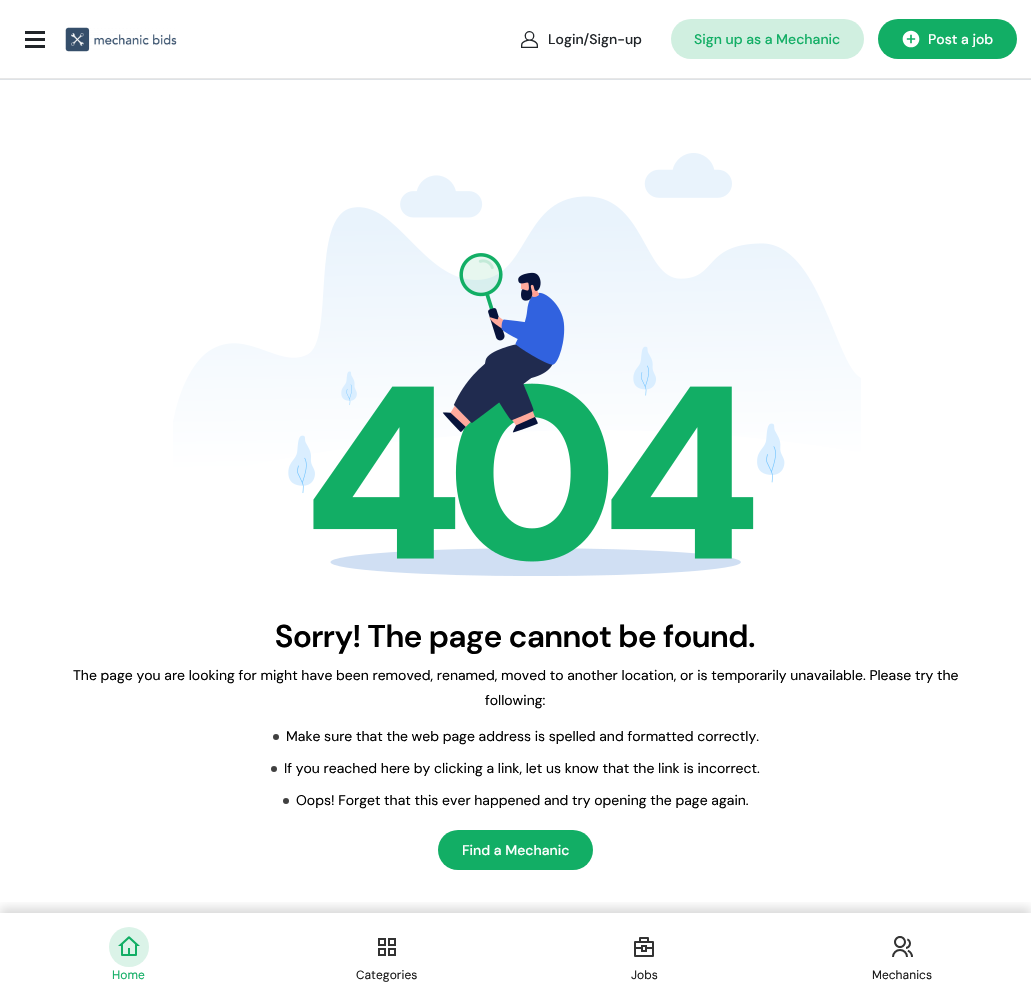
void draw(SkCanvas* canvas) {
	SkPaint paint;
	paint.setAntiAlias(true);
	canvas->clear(0xffffffff);
	paint.setColor(0xffe7e7e7);
	canvas->drawRect(SkRect::MakeXYWH(0, 78, 1031, 1), paint);
	paint.setColor(0xff212529);
	canvas->drawRect(SkRect::MakeXYWH(25, 38, 20, 3), paint);
	canvas->drawRect(SkRect::MakeXYWH(25, 31, 20, 3), paint);
	canvas->drawRect(SkRect::MakeXYWH(25, 45, 20, 3), paint);
	canvas->drawImageRect(SkImages::DeferredFromEncodedData(SkData::MakeFromFileName("img1.png")), SkRect::MakeXYWH(65, 27, 112, 25), SkSamplingOptions());
	canvas->drawImageRect(SkImages::DeferredFromEncodedData(SkData::MakeFromFileName("img2.png")), SkRect::MakeXYWH(521, 31, 17, 17), SkSamplingOptions());
	SkFont f1(fontMgr->matchFamilyStyle("DM Sans", SkFontStyle(500, SkFontStyle::kNormal_Width, SkFontStyle::kUpright_Slant)), 14);
	f1.setSubpixel(true);
	canvas->drawString("Login/Sign-up", 548, 44, f1, paint);
	paint.setColor(0xffd0efe0);
	canvas->drawRoundRect(SkRect::MakeXYWH(671, 19, 193, 40), 20, 20, paint);
	paint.setColor(0xff12ae65);
	canvas->drawString("Sign up as a Mechanic", 694, 44, f1, paint);
	canvas->drawRoundRect(SkRect::MakeXYWH(878, 19, 139, 40), 20, 20, paint);
	canvas->drawImageRect(SkImages::DeferredFromEncodedData(SkData::MakeFromFileName("img3.png")), SkRect::MakeXYWH(902, 30, 18, 18), SkSamplingOptions());
	paint.setColor(0xffffffff);
	canvas->drawString("Post a job", 928, 44, f1, paint);
	canvas->save();
	canvas->clipRect(SkRect::MakeXYWH(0, 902, 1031, 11));
	paint.setColor(0x26000000);
	paint.setMaskFilter(SkMaskFilter::MakeBlur(kNormal_SkBlurStyle, 5));
	canvas->drawRect(SkRect::MakeXYWH(0, 908, 1031, 87), paint);
	paint.setMaskFilter(nullptr);
	canvas->restore();
	paint.setColor(0xffdbf3e8);
	canvas->drawCircle(129, 947, 20, paint);
	canvas->drawImageRect(SkImages::DeferredFromEncodedData(SkData::MakeFromFileName("img4.png")), SkRect::MakeXYWH(118, 936, 22, 20), SkSamplingOptions());
	SkFont f2(fontMgr->matchFamilyStyle("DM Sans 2", SkFontStyle::Normal()), 12);
	f2.setSubpixel(true);
	paint.setColor(0xff12ae65);
	canvas->drawString("Home", 112, 979, f2, paint);
	canvas->drawImageRect(SkImages::DeferredFromEncodedData(SkData::MakeFromFileName("img5.png")), SkRect::MakeXYWH(378, 938, 18, 18), SkSamplingOptions());
	paint.setColor(0xff1a1a1a);
	canvas->drawString("Categories", 356, 979, f2, paint);
	canvas->drawImageRect(SkImages::DeferredFromEncodedData(SkData::MakeFromFileName("img6.png")), SkRect::MakeXYWH(634, 937, 20, 20), SkSamplingOptions());
	canvas->drawString("Jobs", 631, 979, f2, paint);
	canvas->drawImageRect(SkImages::DeferredFromEncodedData(SkData::MakeFromFileName("img7.png")), SkRect::MakeXYWH(892, 936, 21, 21), SkSamplingOptions());
	canvas->drawString("Mechanics", 872, 979, f2, paint);
	paint.setColor(0xffdee2e6);
	canvas->drawRect(SkRect::MakeXYWH(0, 79, 1031, 1), paint);
	canvas->drawImageRect(SkImages::DeferredFromEncodedData(SkData::MakeFromFileName("img8.png")), SkRect::MakeXYWH(173, 153, 688, 423), SkSamplingOptions());
	SkFont f3(fontMgr->matchFamilyStyle("DM Sans", SkFontStyle(600, SkFontStyle::kNormal_Width, SkFontStyle::kUpright_Slant)), 31.5);
	f3.setSubpixel(true);
	paint.setColor(0xff000000);
	canvas->drawString("Sorry! The page cannot be found.", 275, 647, f3, paint);
	SkFont f4(fontMgr->matchFamilyStyle("DM Sans", SkFontStyle::Normal()), 14);
	f4.setSubpixel(true);
	canvas->drawString("The page you are looking for might have been removed, renamed, moved to another location, or is temporarily unavailable. Please try the", 73, 680, f4, paint);
	canvas->drawString("following:", 485, 705, f4, paint);
	paint.setColor(0xff404040);
	canvas->drawCircle(276, 737, 3, paint);
	paint.setColor(0xff000000);
	canvas->drawString("Make sure that the web page address is spelled and formatted correctly.", 286, 741, f4, paint);
	paint.setColor(0xff404040);
	canvas->drawCircle(274, 769, 3, paint);
	paint.setColor(0xff000000);
	canvas->drawString("If you reached here by clicking a link, let us know that the link is incorrect.", 284, 773, f4, paint);
	paint.setColor(0xff404040);
	canvas->drawCircle(286, 801, 3, paint);
	paint.setColor(0xff000000);
	canvas->drawString("Oops! Forget that this ever happened and try opening the page again.", 296, 805, f4, paint);
	paint.setColor(0xff12ae65);
	canvas->drawRoundRect(SkRect::MakeXYWH(438, 830, 155, 40), 20, 20, paint);
	paint.setColor(0xffffffff);
	canvas->drawString("Find a Mechanic", 462, 855, f1, paint);
}
